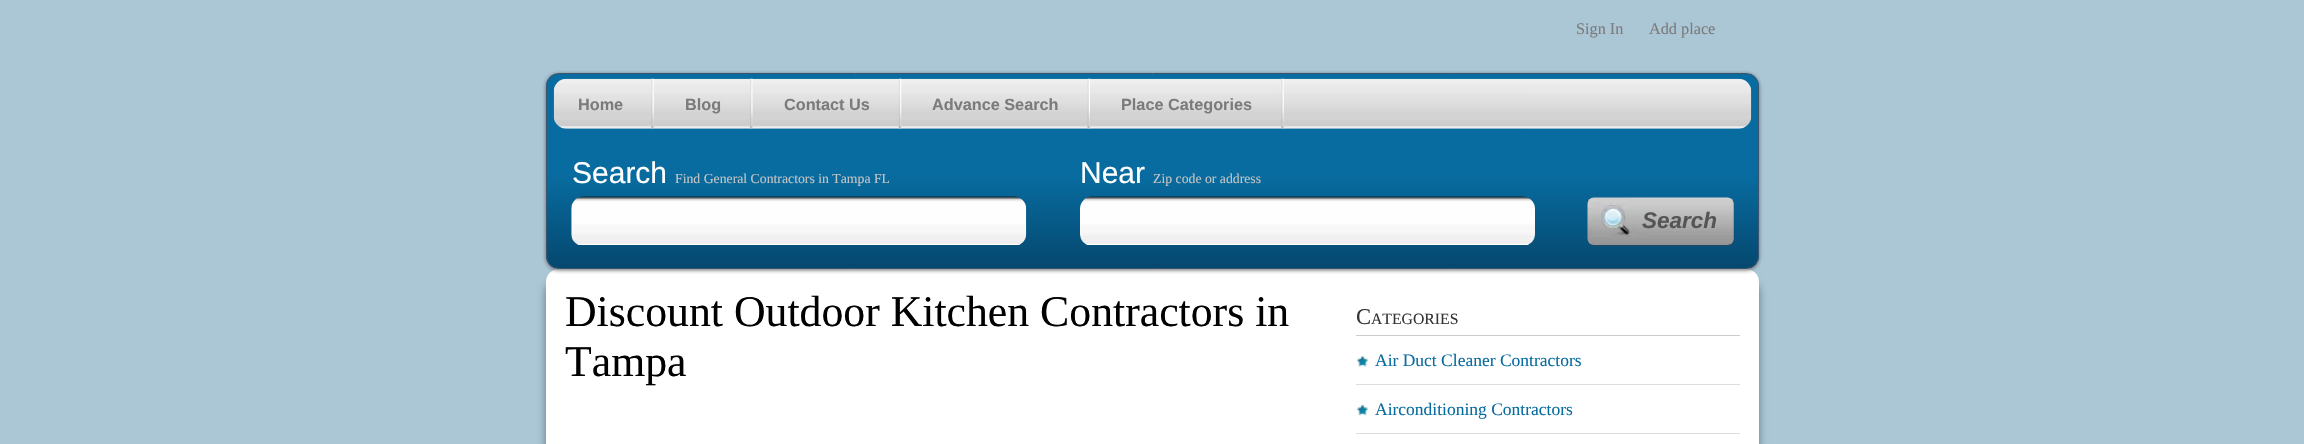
void draw(SkCanvas* canvas) {
	SkPaint paint;
	paint.setAntiAlias(true);
	auto svgPath = [&](const char* data, bool evenOdd = false) {
		SkPath result = *SkParsePath::FromSVGString(data);
		if (evenOdd) result.setFillType(SkPathFillType::kEvenOdd);
		return result;
	};
	canvas->clear(0xffabc7d6);
	SkFont f1(fontMgr->matchFamilyStyle("Liberation Serif", SkFontStyle::Normal()), 16.25);
	f1.setSubpixel(true);
	paint.setColor(0xff7b7b7b);
	canvas->drawString("Sign In", 1576, 34, f1, paint);
	canvas->drawString("Add place", 1649, 34, f1, paint);
	paint.setColor(0x66000000);
	paint.setMaskFilter(SkMaskFilter::MakeBlur(kNormal_SkBlurStyle, 5));
	canvas->drawRoundRect(SkRect::MakeXYWH(546, 281, 1213, 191), 13, 13, paint);
	paint.setMaskFilter(nullptr);
	paint.setColor(0xffffffff);
	canvas->drawRoundRect(SkRect::MakeXYWH(546, 269, 1213, 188), 13, 13, paint);
	paint.setColor(0xff666666);
	paint.setMaskFilter(SkMaskFilter::MakeBlur(kNormal_SkBlurStyle, 2));
	canvas->drawRoundRect(SkRect::MakeXYWH(546, 74, 1213, 196), 13, 13, paint);
	paint.setMaskFilter(nullptr);
	canvas->save();
	canvas->clipPath(svgPath("M559 73H1746C1753 73 1759 79 1759 86V256C1759 263 1753 269 1746 269H559C552 269 546 263 546 256V86C546 79 552 73 559 73Z"), true);
	{
		const SkColor colors[] = {0xff086ca0, 0xff05486f};
		const float stops[] = {0.52, 1};
		const SkPoint ends[] = {{1153, 74}, {1153, 268}};
		paint.setShader(SkGradientShader::MakeLinear(ends, colors, stops, 2, SkTileMode::kClamp));
		paint.setAlpha(255);
	}
	canvas->drawRect(SkRect::MakeXYWH(546, 74, 1213, 194), paint);
	canvas->restore();
	paint.setStroke(true);
	paint.setStrokeWidth(1);
	paint.setShader(nullptr);
	paint.setColor(0xff3a5570);
	canvas->drawRoundRect(SkRect::MakeXYWH(546.5, 73.5, 1212, 195), 12.5, 12.5, paint);
	canvas->drawImageRect(SkImages::DeferredFromEncodedData(SkData::MakeFromFileName("img1.png")), SkRect::MakeXYWH(553, 78, 1199, 51), SkSamplingOptions());
	canvas->drawImageRect(SkImages::DeferredFromEncodedData(SkData::MakeFromFileName("img2.png")), SkRect::MakeXYWH(651, 78, 3, 51), SkSamplingOptions());
	SkFont f2(fontMgr->matchFamilyStyle("Liberation Sans", SkFontStyle::Bold()), 16.25);
	f2.setSubpixel(true);
	paint.setStroke(false);
	paint.setColor(0xff7b7b7b);
	canvas->drawString("Home", 578, 110, f2, paint);
	canvas->drawImageRect(SkImages::DeferredFromEncodedData(SkData::MakeFromFileName("img3.png")), SkRect::MakeXYWH(750, 78, 3, 51), SkSamplingOptions());
	canvas->drawString("Blog", 685, 110, f2, paint);
	canvas->drawImageRect(SkImages::DeferredFromEncodedData(SkData::MakeFromFileName("img4.png")), SkRect::MakeXYWH(898, 78, 4, 51), SkSamplingOptions());
	canvas->drawString("Contact Us", 784, 110, f2, paint);
	canvas->drawImageRect(SkImages::DeferredFromEncodedData(SkData::MakeFromFileName("img5.png")), SkRect::MakeXYWH(1087, 78, 3, 51), SkSamplingOptions());
	canvas->drawString("Advance Search", 932, 110, f2, paint);
	canvas->drawImageRect(SkImages::DeferredFromEncodedData(SkData::MakeFromFileName("img6.png")), SkRect::MakeXYWH(1281, 78, 3, 51), SkSamplingOptions());
	canvas->drawString("Place Categories", 1121, 110, f2, paint);
	SkFont f3(fontMgr->matchFamilyStyle("Liberation Sans", SkFontStyle::Normal()), 30);
	f3.setSubpixel(true);
	paint.setColor(0xffffffff);
	canvas->drawString("Search", 572, 183, f3, paint);
	SkFont f4(fontMgr->matchFamilyStyle("Liberation Serif", SkFontStyle::Normal()), 13.75);
	f4.setSubpixel(true);
	paint.setColor(0xffc4c4c4);
	canvas->drawString("Find General Contractors in Tampa FL", 675, 183, f4, paint);
	canvas->drawImageRect(SkImages::DeferredFromEncodedData(SkData::MakeFromFileName("img7.png")), SkRect::MakeXYWH(571, 196, 456, 49), SkSamplingOptions());
	paint.setColor(0xffffffff);
	canvas->drawString("Near", 1080, 183, f3, paint);
	paint.setColor(0xffc4c4c4);
	canvas->drawString("Zip code or address", 1153, 183, f4, paint);
	canvas->drawImageRect(SkImages::DeferredFromEncodedData(SkData::MakeFromFileName("img8.png")), SkRect::MakeXYWH(1080, 196, 455, 49), SkSamplingOptions());
	paint.setColor(0xff224466);
	paint.setMaskFilter(SkMaskFilter::MakeBlur(kNormal_SkBlurStyle, 0.5));
	canvas->drawRoundRect(SkRect::MakeXYWH(1588, 199, 146, 47), 6, 6, paint);
	paint.setMaskFilter(nullptr);
	canvas->drawImageRect(SkImages::DeferredFromEncodedData(SkData::MakeFromFileName("img9.png")), SkRect::MakeXYWH(1587, 197, 147, 48), SkSamplingOptions());
	SkFont f5(fontMgr->matchFamilyStyle("Liberation Sans", SkFontStyle::BoldItalic()), 22.5);
	f5.setSubpixel(true);
	paint.setColor(0xff555555);
	canvas->drawString("Search", 1642, 228, f5, paint);
	SkFont f6(fontMgr->matchFamilyStyle("Liberation Serif", SkFontStyle::Normal()), 43.75);
	f6.setSubpixel(true);
	paint.setColor(0xff000000);
	canvas->drawString("Discount Outdoor Kitchen Contractors in", 565, 326, f6, paint);
	canvas->drawString("Tampa", 565, 376, f6, paint);
	paint.setColor(0xffcccccc);
	canvas->drawRect(SkRect::MakeXYWH(1356, 335, 384, 1), paint);
	SkFont f7(fontMgr->matchFamilyStyle("Liberation Serif", SkFontStyle::Normal()), 22.5);
	f7.setSubpixel(true);
	paint.setColor(0xff333333);
	canvas->drawString("C", 1356, 324, f7, paint);
	SkFont f8(fontMgr->matchFamilyStyle("Liberation Serif", SkFontStyle::Normal()), 15.75);
	f8.setSubpixel(true);
	canvas->drawString("ATEGORIES", 1371, 324, f8, paint);
	canvas->drawImageRect(SkImages::DeferredFromEncodedData(SkData::MakeFromFileName("img10.png")), SkRect::MakeXYWH(1357, 355, 11, 12), SkSamplingOptions());
	paint.setColor(0xffdddddd);
	canvas->drawRect(SkRect::MakeXYWH(1356, 384, 384, 1), paint);
	SkFont f9(fontMgr->matchFamilyStyle("Liberation Serif", SkFontStyle::Normal()), 17.5);
	f9.setSubpixel(true);
	paint.setColor(0xff086ca0);
	canvas->drawString("Air Duct Cleaner Contractors", 1375, 366, f9, paint);
	canvas->drawImageRect(SkImages::DeferredFromEncodedData(SkData::MakeFromFileName("img11.png")), SkRect::MakeXYWH(1357, 404, 11, 12), SkSamplingOptions());
	paint.setColor(0xffdddddd);
	canvas->drawRect(SkRect::MakeXYWH(1356, 433, 384, 1), paint);
	paint.setColor(0xff086ca0);
	canvas->drawString("Airconditioning Contractors", 1375, 415, f9, paint);
}
